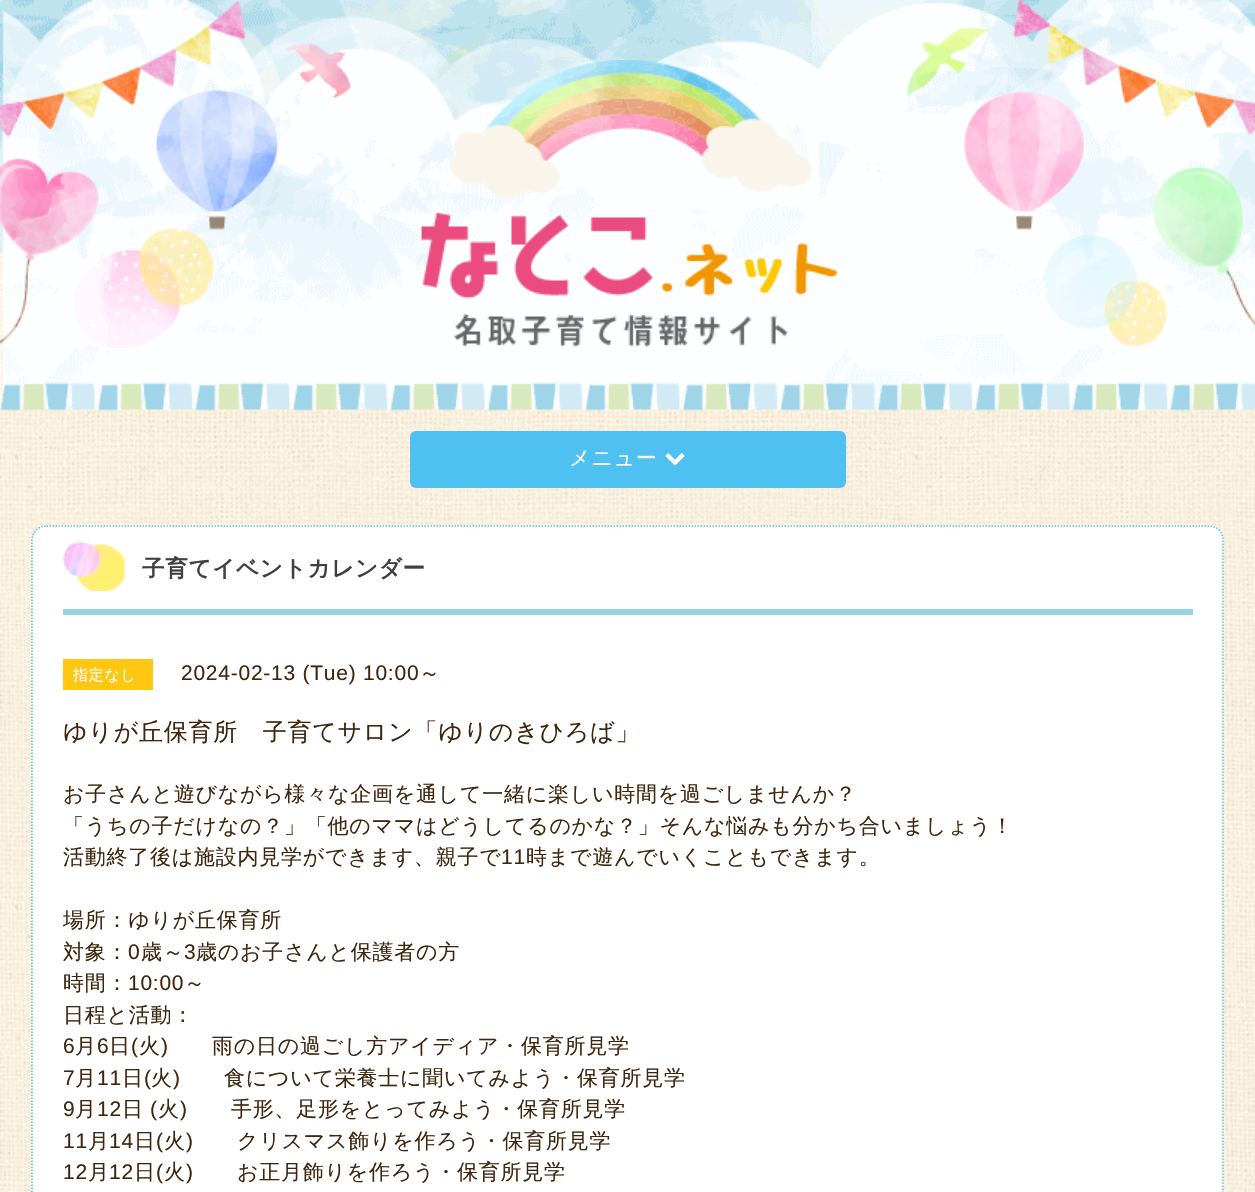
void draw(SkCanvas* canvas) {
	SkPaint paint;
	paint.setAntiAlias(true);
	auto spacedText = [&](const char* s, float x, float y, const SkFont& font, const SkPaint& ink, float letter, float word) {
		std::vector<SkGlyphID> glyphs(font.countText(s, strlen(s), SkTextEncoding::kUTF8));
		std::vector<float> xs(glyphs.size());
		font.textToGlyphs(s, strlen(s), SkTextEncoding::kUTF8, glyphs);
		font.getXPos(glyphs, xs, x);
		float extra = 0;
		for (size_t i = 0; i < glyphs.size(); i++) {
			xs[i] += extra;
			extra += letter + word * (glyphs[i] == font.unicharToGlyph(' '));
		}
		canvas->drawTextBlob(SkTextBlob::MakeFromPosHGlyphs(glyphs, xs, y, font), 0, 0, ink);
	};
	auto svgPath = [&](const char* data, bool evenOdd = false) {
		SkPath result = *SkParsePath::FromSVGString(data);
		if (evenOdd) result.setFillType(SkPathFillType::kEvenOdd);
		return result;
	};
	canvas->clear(0xffffffff);
	canvas->drawImageRect(SkImages::DeferredFromEncodedData(SkData::MakeFromFileName("img1.png")), SkRect::MakeXYWH(0, 0, 1255, 1192), SkSamplingOptions());
	canvas->drawImageRect(SkImages::DeferredFromEncodedData(SkData::MakeFromFileName("img2.png")), SkRect::MakeXYWH(0, 0, 1255, 348), SkSamplingOptions());
	canvas->drawImageRect(SkImages::DeferredFromEncodedData(SkData::MakeFromFileName("img3.png")), SkRect::MakeXYWH(421, 60, 417, 287), SkSamplingOptions());
	paint.setColor(0xff4ec0f2);
	canvas->drawRoundRect(SkRect::MakeXYWH(410, 431, 436, 57), 6, 6, paint);
	SkFont f1(fontMgr->matchFamilyStyle("WenQuanYi Zen Hei", SkFontStyle(500, SkFontStyle::kNormal_Width, SkFontStyle::kUpright_Slant)), 21);
	f1.setSubpixel(true);
	paint.setColor(0xffffffff);
	spacedText("メニュー", 569, 465, f1, paint, 0.75, 0);
	canvas->drawImageRect(SkImages::DeferredFromEncodedData(SkData::MakeFromFileName("img4.png")), SkRect::MakeXYWH(665, 453, 20, 13), SkSamplingOptions());
	canvas->drawRoundRect(SkRect::MakeXYWH(32, 525, 1192, 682), 15, 15, paint);
	paint.setStroke(true);
	paint.setStrokeWidth(1.5);
	paint.setColor(0xff4ec0f2);
	paint.setPathEffect(SkDashPathEffect::Make({{1.5f, 1.5f}}, 0));
	canvas->drawPath(svgPath("M46.5 526H1209C1217 526 1223 532 1223 540V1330.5C1223 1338.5 1217 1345 1209 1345H46.5C38.5 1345 32 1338.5 32 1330.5V540C32 532 38.5 526 46.5 526Z"), paint);
	paint.setPathEffect(nullptr);
	canvas->drawImageRect(SkImages::DeferredFromEncodedData(SkData::MakeFromFileName("img5.png")), SkRect::MakeXYWH(63, 541, 62, 50), SkSamplingOptions());
	SkFont f2(fontMgr->matchFamilyStyle("WenQuanYi Zen Hei", SkFontStyle::Bold()), 22.5);
	f2.setSubpixel(true);
	paint.setStroke(false);
	paint.setColor(0xff404040);
	spacedText("子育てイベントカレンダー", 142, 576, f2, paint, 0.75, 0);
	paint.setColor(0xff96d4e3);
	canvas->drawRect(SkRect::MakeXYWH(63, 609, 1130, 6), paint);
	paint.setColor(0xffffc612);
	canvas->drawRect(SkRect::MakeXYWH(63, 659, 90, 31), paint);
	SkFont f3(fontMgr->matchFamilyStyle("WenQuanYi Zen Hei", SkFontStyle(500, SkFontStyle::kNormal_Width, SkFontStyle::kUpright_Slant)), 15);
	f3.setSubpixel(true);
	paint.setColor(0xffffffff);
	spacedText("指定なし", 73, 680, f3, paint, 0.75, 0);
	SkFont f4(fontMgr->matchFamilyStyle("Liberation Sans", SkFontStyle::Normal()), 21);
	f4.setSubpixel(true);
	paint.setColor(0xff3f260d);
	spacedText("2024-02-13 (Tue) 10:00", 181, 680, f4, paint, 0.75, 0);
	spacedText("～", 419, 680, f1, paint, 0.75, 0);
	SkFont f5(fontMgr->matchFamilyStyle("WenQuanYi Zen Hei", SkFontStyle(500, SkFontStyle::kNormal_Width, SkFontStyle::kUpright_Slant)), 24);
	f5.setSubpixel(true);
	spacedText("ゆりが丘保育所　子育てサロン「ゆりのきひろば」", 63, 740, f5, paint, 0.75, 0);
	spacedText("お子さんと遊びながら様々な企画を通して一緒に楽しい時間を過ごしませんか？", 63, 801, f1, paint, 0.75, 0);
	spacedText("「うちの子だけなの？」「他のママはどうしてるのかな？」そんな悩みも分かち合いましょう！", 63, 833, f1, paint, 0.75, 0);
	spacedText("活動終了後は施設内見学ができます、親子で", 63, 864, f1, paint, 0.75, 0);
	spacedText("11", 501, 864, f4, paint, 0.75, 0);
	spacedText("時まで遊んでいくこともできます。", 526, 864, f1, paint, 0.75, 0);
	spacedText("場所：ゆりが丘保育所", 63, 927, f1, paint, 0.75, 0);
	spacedText("対象：", 63, 959, f1, paint, 0.75, 0);
	spacedText("0", 128, 959, f4, paint, 0.75, 0);
	spacedText("歳～", 141, 959, f1, paint, 0.75, 0);
	spacedText("3", 184, 959, f4, paint, 0.75, 0);
	spacedText("歳のお子さんと保護者の方", 196, 959, f1, paint, 0.75, 0);
	spacedText("時間：", 63, 990, f1, paint, 0.75, 0);
	spacedText("10:00", 128, 990, f4, paint, 0.75, 0);
	spacedText("～", 184, 990, f1, paint, 0.75, 0);
	spacedText("日程と活動：", 63, 1022, f1, paint, 0.75, 0);
	spacedText("6", 63, 1053, f4, paint, 0.75, 0);
	spacedText("月", 75, 1053, f1, paint, 0.75, 0);
	spacedText("6", 97, 1053, f4, paint, 0.75, 0);
	spacedText("日", 109, 1053, f1, paint, 0.75, 0);
	spacedText("(", 131, 1053, f4, paint, 0.75, 0);
	spacedText("火", 139, 1053, f1, paint, 0.75, 0);
	spacedText(")", 161, 1053, f4, paint, 0.75, 0);
	spacedText("雨の日の過ごし方アイディア・保育所見学", 212, 1053, f1, paint, 0.75, 0);
	spacedText("7", 63, 1085, f4, paint, 0.75, 0);
	spacedText("月", 75, 1085, f1, paint, 0.75, 0);
	spacedText("11", 97, 1085, f4, paint, 0.75, 0);
	spacedText("日", 122, 1085, f1, paint, 0.75, 0);
	spacedText("(", 144, 1085, f4, paint, 0.75, 0);
	spacedText("火", 151, 1085, f1, paint, 0.75, 0);
	spacedText(")", 173, 1085, f4, paint, 0.75, 0);
	spacedText("食について栄養士に聞いてみよう・保育所見学", 224, 1085, f1, paint, 0.75, 0);
	spacedText("9", 63, 1116, f4, paint, 0.75, 0);
	spacedText("月", 75, 1116, f1, paint, 0.75, 0);
	spacedText("12", 97, 1116, f4, paint, 0.75, 0);
	spacedText("日", 122, 1116, f1, paint, 0.75, 0);
	spacedText("(", 150, 1116, f4, paint, 0.75, 0);
	spacedText("火", 158, 1116, f1, paint, 0.75, 0);
	spacedText(")", 180, 1116, f4, paint, 0.75, 0);
	spacedText("手形、足形をとってみよう・保育所見学", 231, 1116, f1, paint, 0.75, 0);
	spacedText("11", 63, 1148, f4, paint, 0.75, 0);
	spacedText("月", 88, 1148, f1, paint, 0.75, 0);
	spacedText("14", 109, 1148, f4, paint, 0.75, 0);
	spacedText("日", 134, 1148, f1, paint, 0.75, 0);
	spacedText("(", 156, 1148, f4, paint, 0.75, 0);
	spacedText("火", 164, 1148, f1, paint, 0.75, 0);
	spacedText(")", 186, 1148, f4, paint, 0.75, 0);
	spacedText("クリスマス飾りを作ろう・保育所見学", 237, 1148, f1, paint, 0.75, 0);
	spacedText("12", 63, 1179, f4, paint, 0.75, 0);
	spacedText("月", 88, 1179, f1, paint, 0.75, 0);
	spacedText("12", 109, 1179, f4, paint, 0.75, 0);
	spacedText("日", 134, 1179, f1, paint, 0.75, 0);
	spacedText("(", 156, 1179, f4, paint, 0.75, 0);
	spacedText("火", 164, 1179, f1, paint, 0.75, 0);
	spacedText(")", 186, 1179, f4, paint, 0.75, 0);
	spacedText("お正月飾りを作ろう・保育所見学", 237, 1179, f1, paint, 0.75, 0);
}
